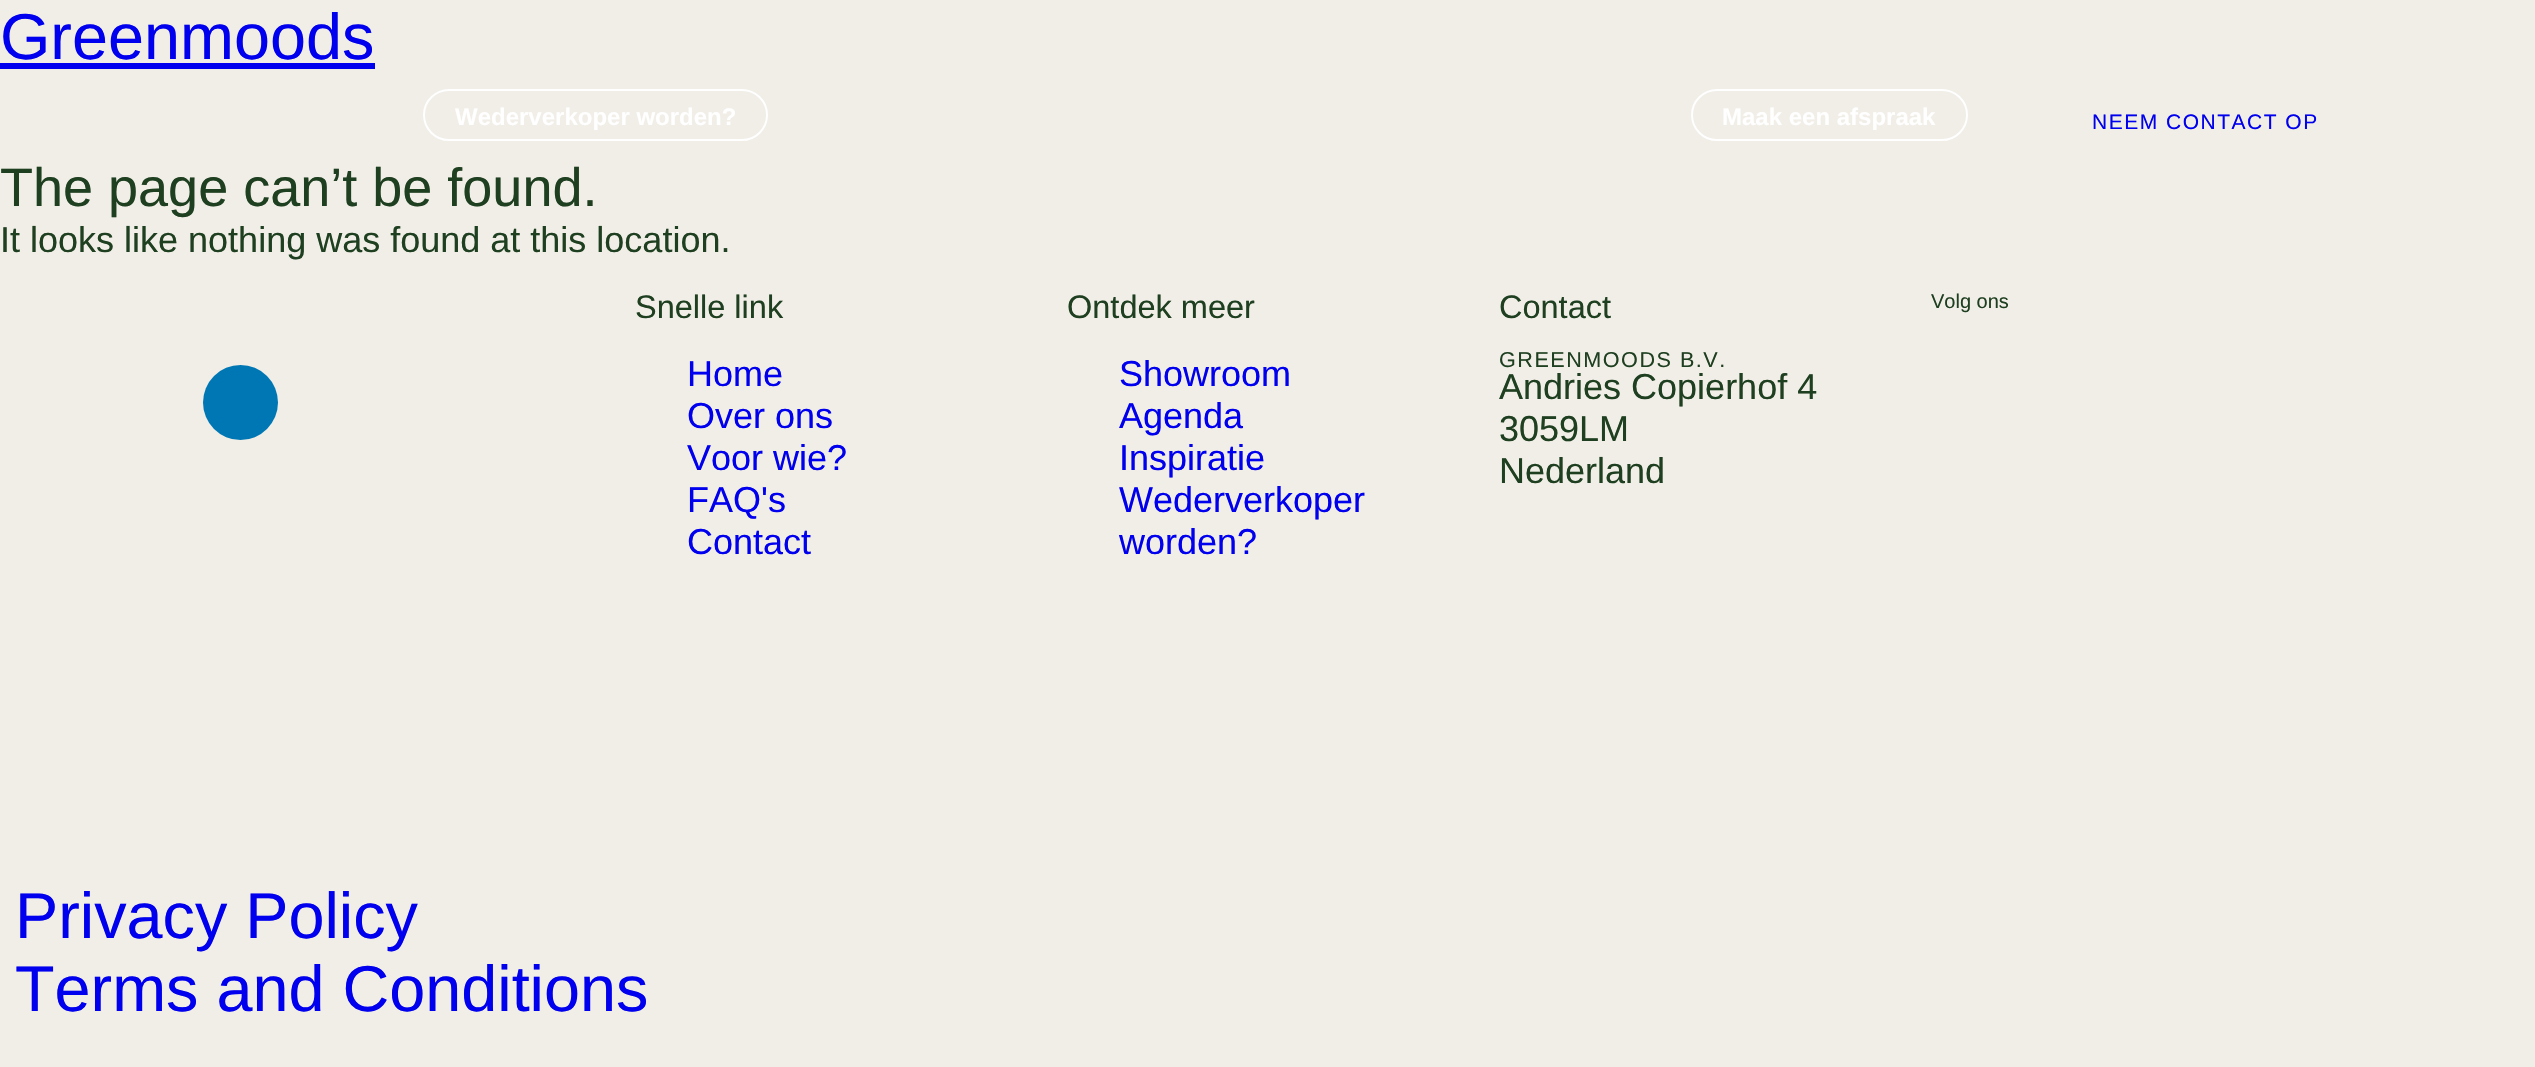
void draw(SkCanvas* canvas) {
	SkPaint paint;
	paint.setAntiAlias(true);
	auto spacedText = [&](const char* s, float x, float y, const SkFont& font, const SkPaint& ink, float letter, float word) {
		std::vector<SkGlyphID> glyphs(font.countText(s, strlen(s), SkTextEncoding::kUTF8));
		std::vector<float> xs(glyphs.size());
		font.textToGlyphs(s, strlen(s), SkTextEncoding::kUTF8, glyphs);
		font.getXPos(glyphs, xs, x);
		float extra = 0;
		for (size_t i = 0; i < glyphs.size(); i++) {
			xs[i] += extra;
			extra += letter + word * (glyphs[i] == font.unicharToGlyph(' '));
		}
		canvas->drawTextBlob(SkTextBlob::MakeFromPosHGlyphs(glyphs, xs, y, font), 0, 0, ink);
	};
	canvas->clear(0xfff1eee7);
	SkFont f1(fontMgr->matchFamilyStyle("Liberation Sans", SkFontStyle::Normal()), 64.75);
	f1.setSubpixel(true);
	paint.setColor(0xff0000ee);
	canvas->drawString("Greenmoods", 0, 59, f1, paint);
	canvas->drawRect(SkRect::MakeXYWH(0, 63, 375, 6), paint);
	paint.setStroke(true);
	paint.setStrokeWidth(2);
	paint.setColor(0xffffffff);
	canvas->drawRoundRect(SkRect::MakeXYWH(424, 90, 343, 50), 25, 25, paint);
	SkFont f2(fontMgr->matchFamilyStyle("Liberation Sans", SkFontStyle::Bold()), 24);
	f2.setSubpixel(true);
	paint.setStroke(false);
	canvas->drawString("Wederverkoper worden?", 455, 125, f2, paint);
	paint.setStroke(true);
	canvas->drawRoundRect(SkRect::MakeXYWH(1692, 90, 275, 50), 25, 25, paint);
	paint.setStroke(false);
	canvas->drawString("Maak een afspraak", 1722, 125, f2, paint);
	SkFont f3(fontMgr->matchFamilyStyle("Liberation Sans", SkFontStyle::Normal()), 21);
	f3.setSubpixel(true);
	paint.setColor(0xff0000ee);
	spacedText("NEEM CONTACT OP", 2092, 129, f3, paint, 1.5, 0);
	SkFont f4(fontMgr->matchFamilyStyle("Liberation Sans", SkFontStyle::Normal()), 54);
	f4.setSubpixel(true);
	paint.setColor(0xff1e3f20);
	canvas->drawString("The page can’t be found.", 0, 206, f4, paint);
	SkFont f5(fontMgr->matchFamilyStyle("Liberation Sans", SkFontStyle::Normal()), 36);
	f5.setSubpixel(true);
	canvas->drawString("It looks like nothing was found at this location.", 0, 252, f5, paint);
	paint.setColor(0xff0077b5);
	canvas->drawCircle(240.5, 402.5, 37.5, paint);
	SkFont f6(fontMgr->matchFamilyStyle("Liberation Sans", SkFontStyle::Normal()), 32.5);
	f6.setSubpixel(true);
	paint.setColor(0xff1e3f20);
	canvas->drawString("Snelle link", 635, 318, f6, paint);
	paint.setColor(0xff0000ee);
	canvas->drawString("Home", 687, 386, f5, paint);
	canvas->drawString("Over ons", 687, 428, f5, paint);
	canvas->drawString("Voor wie?", 687, 470, f5, paint);
	canvas->drawString("FAQ's", 687, 512, f5, paint);
	canvas->drawString("Contact", 687, 554, f5, paint);
	paint.setColor(0xff1e3f20);
	canvas->drawString("Ontdek meer", 1067, 318, f6, paint);
	paint.setColor(0xff0000ee);
	canvas->drawString("Showroom", 1119, 386, f5, paint);
	canvas->drawString("Agenda", 1119, 428, f5, paint);
	canvas->drawString("Inspiratie", 1119, 470, f5, paint);
	canvas->drawString("Wederverkoper", 1119, 512, f5, paint);
	canvas->drawString("worden?", 1119, 554, f5, paint);
	paint.setColor(0xff1e3f20);
	canvas->drawString("Contact", 1499, 318, f6, paint);
	SkFont f7(fontMgr->matchFamilyStyle("Liberation Sans", SkFontStyle::Normal()), 21.6);
	f7.setSubpixel(true);
	spacedText("GREENMOODS B.V.", 1499, 367, f7, paint, 1.5, 0);
	canvas->drawString("Andries Copierhof 4", 1499, 399, f5, paint);
	canvas->drawString("3059LM", 1499, 441, f5, paint);
	canvas->drawString("Nederland", 1499, 483, f5, paint);
	SkFont f8(fontMgr->matchFamilyStyle("Liberation Sans", SkFontStyle::Normal()), 20);
	f8.setSubpixel(true);
	canvas->drawString("Volg ons", 1931, 308, f8, paint);
	paint.setColor(0xff0000ee);
	canvas->drawString("Privacy Policy", 15, 938, f1, paint);
	canvas->drawString("Terms and Conditions", 15, 1011, f1, paint);
}
